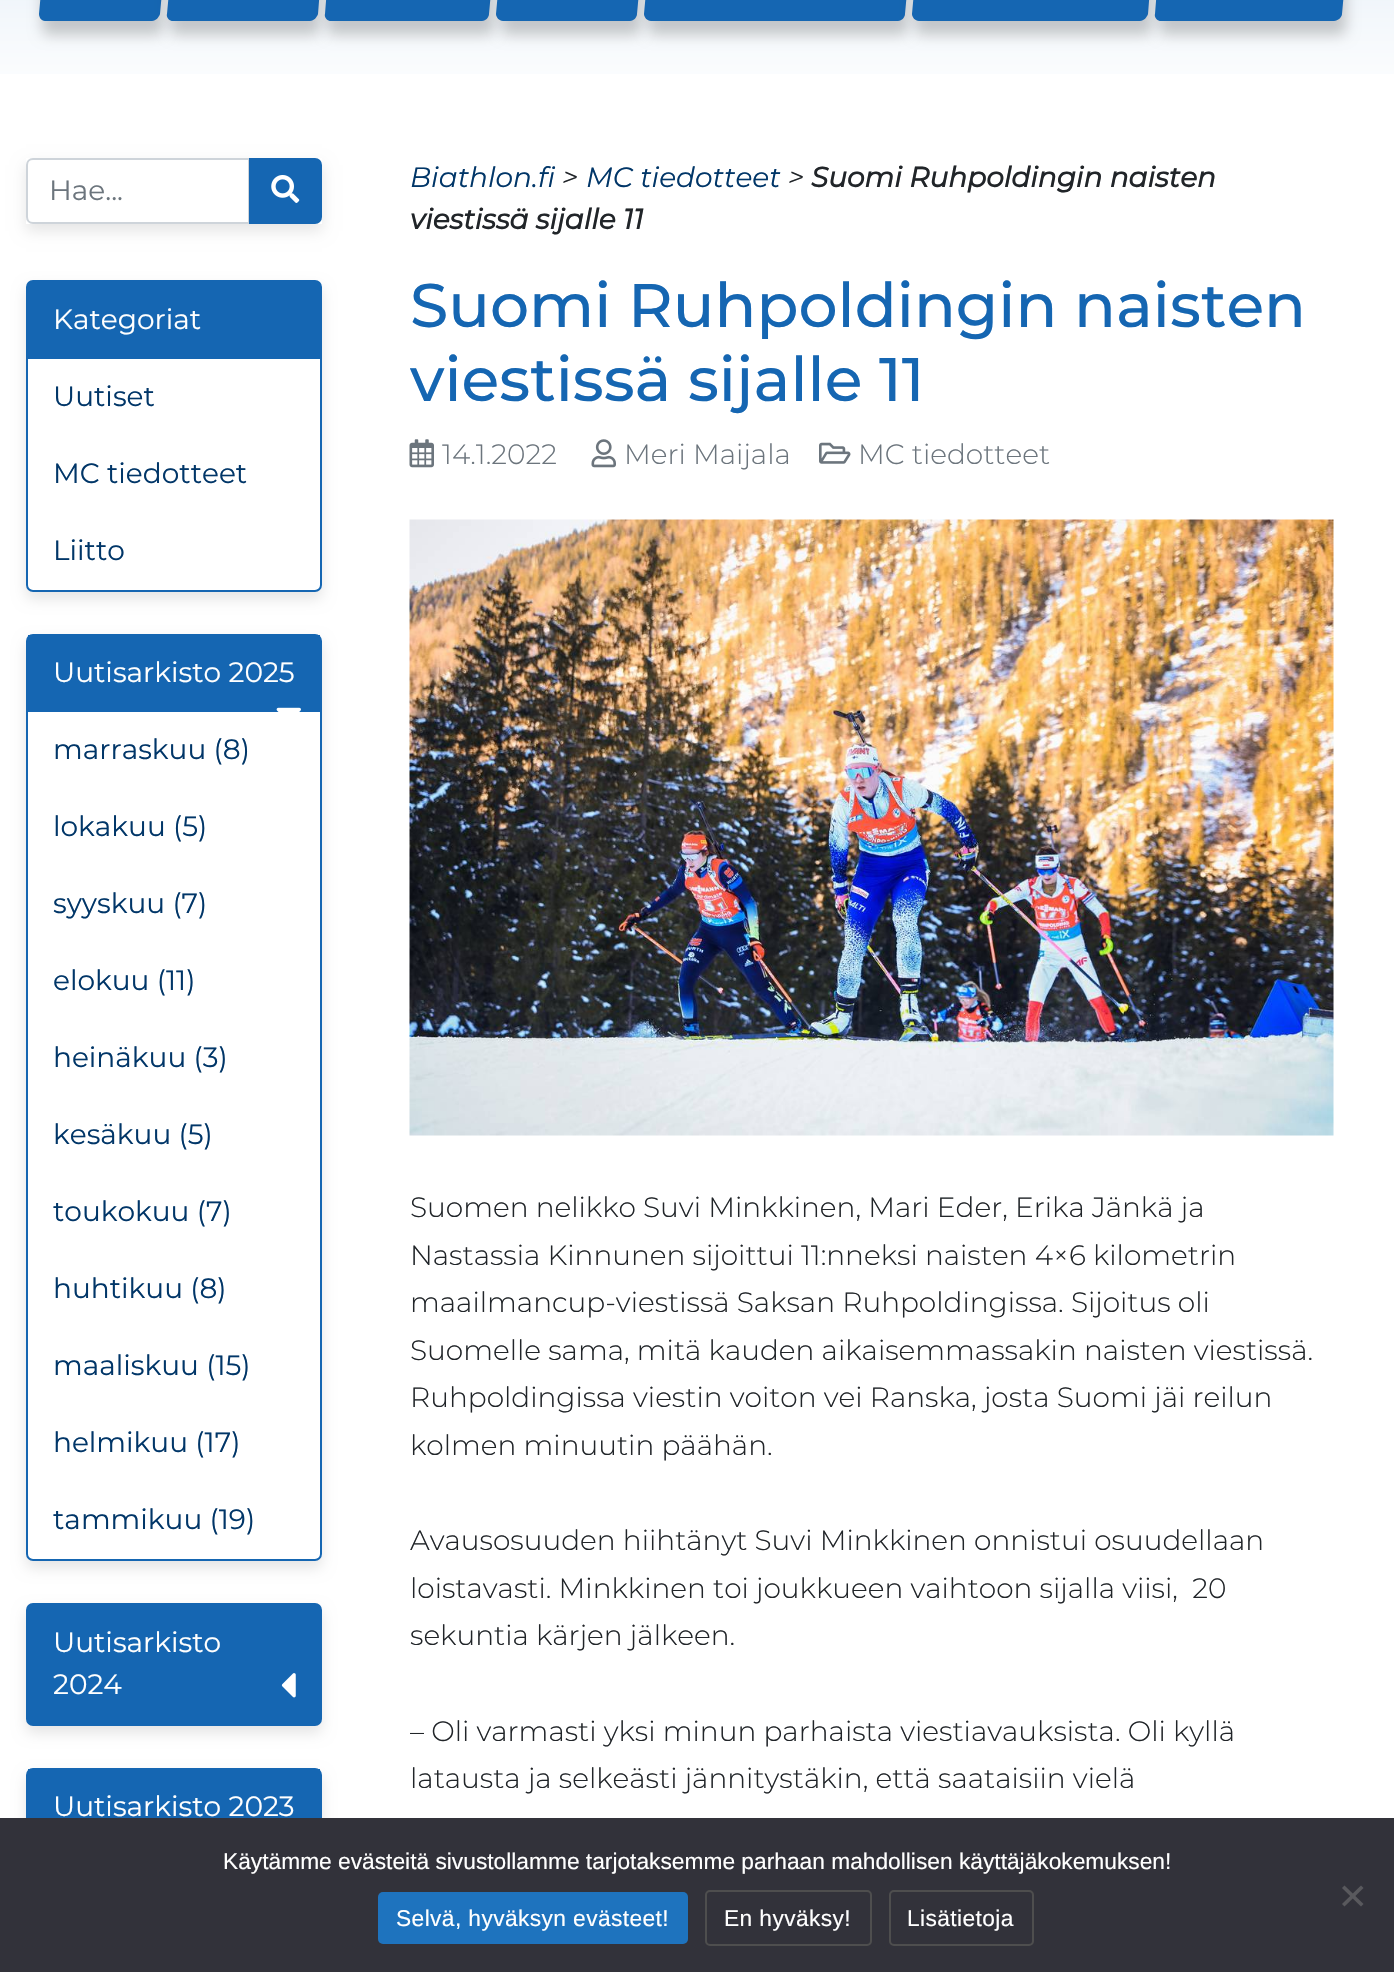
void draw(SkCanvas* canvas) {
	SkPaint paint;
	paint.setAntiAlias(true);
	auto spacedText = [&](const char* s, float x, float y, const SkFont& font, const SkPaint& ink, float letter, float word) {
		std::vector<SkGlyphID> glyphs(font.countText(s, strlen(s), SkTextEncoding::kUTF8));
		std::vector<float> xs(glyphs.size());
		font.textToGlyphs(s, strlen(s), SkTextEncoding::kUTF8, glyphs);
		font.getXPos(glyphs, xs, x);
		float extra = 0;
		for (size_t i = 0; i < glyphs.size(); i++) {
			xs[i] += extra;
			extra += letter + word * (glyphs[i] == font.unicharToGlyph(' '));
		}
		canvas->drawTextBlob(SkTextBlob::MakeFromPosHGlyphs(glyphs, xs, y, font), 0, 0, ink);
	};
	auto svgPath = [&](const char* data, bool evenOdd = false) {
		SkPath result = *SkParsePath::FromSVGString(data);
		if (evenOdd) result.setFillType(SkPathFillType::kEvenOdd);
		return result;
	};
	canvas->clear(0xffffffff);
	canvas->drawImageRect(SkImages::DeferredFromEncodedData(SkData::MakeFromFileName("img1.png")), SkRect::MakeXYWH(0, 0, 1394, 74), SkSamplingOptions());
	paint.setColor(0x33000000);
	paint.setMaskFilter(SkMaskFilter::MakeBlur(kNormal_SkBlurStyle, 7));
	canvas->drawRoundRect(SkRect::MakeXYWH(42, -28, 121, 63), 7, 7, paint);
	paint.setMaskFilter(nullptr);
	paint.setColor(0xff1566b2);
	canvas->drawPath(svgPath("M53-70H160C164-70 167-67 167-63L160 14C159 17 156 21 152 21H45C41 21 39 17 39 14L46-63C46-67 49-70 53-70Z"), paint);
	paint.setColor(0x33000000);
	paint.setMaskFilter(SkMaskFilter::MakeBlur(kNormal_SkBlurStyle, 7));
	canvas->drawRoundRect(SkRect::MakeXYWH(170, -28, 150, 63), 7, 7, paint);
	paint.setMaskFilter(nullptr);
	paint.setColor(0xff1566b2);
	canvas->drawPath(svgPath("M181-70H318C322-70 325-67 324-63L318 14C317 17 314 21 310 21H173C169 21 166 17 167 14L174-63C174-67 177-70 181-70Z"), paint);
	paint.setColor(0x33000000);
	paint.setMaskFilter(SkMaskFilter::MakeBlur(kNormal_SkBlurStyle, 7));
	canvas->drawRoundRect(SkRect::MakeXYWH(327, -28, 167, 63), 7, 7, paint);
	paint.setMaskFilter(nullptr);
	paint.setColor(0xff1566b2);
	canvas->drawPath(svgPath("M339-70H490C494-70 496-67 496-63L489 14C489 17 486 21 482 21H331C327 21 324 17 325 14L331-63C332-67 335-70 339-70Z"), paint);
	paint.setColor(0x33000000);
	paint.setMaskFilter(SkMaskFilter::MakeBlur(kNormal_SkBlurStyle, 7));
	canvas->drawRoundRect(SkRect::MakeXYWH(501, -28, 140, 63), 7, 7, paint);
	paint.setMaskFilter(nullptr);
	paint.setColor(0xff1566b2);
	canvas->drawPath(svgPath("M511-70H638C642-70 645-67 644-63L637 14C637 17 634 21 630 21H503C499 21 496 17 496 14L503-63C503-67 507-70 511-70Z"), paint);
	paint.setColor(0x33000000);
	paint.setMaskFilter(SkMaskFilter::MakeBlur(kNormal_SkBlurStyle, 7));
	canvas->drawRoundRect(SkRect::MakeXYWH(648, -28, 260, 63), 7, 7, paint);
	paint.setMaskFilter(nullptr);
	paint.setColor(0xff1566b2);
	canvas->drawPath(svgPath("M659-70H906C910-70 912-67 912-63L905 14C905 17 902 21 898 21H651C647 21 644 17 644 14L651-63C652-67 655-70 659-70Z"), paint);
	paint.setColor(0x33000000);
	paint.setMaskFilter(SkMaskFilter::MakeBlur(kNormal_SkBlurStyle, 7));
	canvas->drawRoundRect(SkRect::MakeXYWH(915, -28, 237, 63), 7, 7, paint);
	paint.setMaskFilter(nullptr);
	paint.setColor(0xff1566b2);
	canvas->drawPath(svgPath("M927-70H1148C1152-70 1155-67 1154-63L1148 14C1147 17 1144 21 1140 21H919C915 21 912 17 912 14L919-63C919-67 923-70 927-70Z"), paint);
	paint.setColor(0x33000000);
	paint.setMaskFilter(SkMaskFilter::MakeBlur(kNormal_SkBlurStyle, 7));
	canvas->drawRoundRect(SkRect::MakeXYWH(1159, -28, 187, 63), 7, 7, paint);
	paint.setMaskFilter(nullptr);
	paint.setColor(0xff1566b2);
	canvas->drawPath(svgPath("M1169-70H1342C1346-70 1349-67 1349-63L1342 14C1342 17 1338 21 1334 21H1161C1157 21 1154 17 1155 14L1161-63C1162-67 1165-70 1169-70Z"), paint);
	canvas->save();
	canvas->clipPath(svgPath("M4 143H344V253H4ZM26 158H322V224H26Z", true), true);
	paint.setColor(0x1a000000);
	paint.setMaskFilter(SkMaskFilter::MakeBlur(kNormal_SkBlurStyle, 7));
	canvas->drawRect(SkRect::MakeXYWH(26, 165, 296, 66), paint);
	paint.setMaskFilter(nullptr);
	canvas->restore();
	paint.setStroke(true);
	paint.setStrokeWidth(2);
	paint.setColor(0xffced4da);
	canvas->drawPath(svgPath("M33 159H249V223H33C29.5 223 27 220.5 27 217V165C27 161.5 29.5 159 33 159Z"), paint);
	SkFont f1(fontMgr->matchFamilyStyle("Montserrat", SkFontStyle::Normal()), 28);
	f1.setSubpixel(true);
	paint.setStroke(false);
	paint.setColor(0xff6c757d);
	canvas->drawString("Hae...", 49, 200, f1, paint);
	paint.setColor(0xff1566b2);
	canvas->drawPath(svgPath("M250 159H315C318.5 159 321 161.5 321 165V217C321 220.5 318.5 223 315 223H250Z"), paint);
	paint.setStroke(true);
	canvas->drawPath(svgPath("M250 159H315C318.5 159 321 161.5 321 165V217C321 220.5 318.5 223 315 223H250Z"), paint);
	canvas->drawImageRect(SkImages::DeferredFromEncodedData(SkData::MakeFromFileName("img2.png")), SkRect::MakeXYWH(271, 175, 29, 28), SkSamplingOptions());
	canvas->save();
	canvas->clipPath(svgPath("M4 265H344V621H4ZM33 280H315C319 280 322 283 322 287V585C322 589 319 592 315 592H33C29 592 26 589 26 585V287C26 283 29 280 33 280Z", true), true);
	paint.setStroke(false);
	paint.setColor(0x1a000000);
	paint.setMaskFilter(SkMaskFilter::MakeBlur(kNormal_SkBlurStyle, 7));
	canvas->drawRoundRect(SkRect::MakeXYWH(26, 287, 296, 312), 7, 7, paint);
	paint.setMaskFilter(nullptr);
	canvas->restore();
	paint.setStroke(true);
	paint.setColor(0xff1566b2);
	canvas->drawRoundRect(SkRect::MakeXYWH(27, 281, 294, 310), 6, 6, paint);
	paint.setStroke(false);
	canvas->drawRect(SkRect::MakeXYWH(28, 282, 292, 77), paint);
	paint.setColor(0xffffffff);
	canvas->drawString("Kategoriat", 53, 329, f1, paint);
	paint.setColor(0xff013668);
	canvas->drawString("Uutiset", 53, 406, f1, paint);
	canvas->drawString("MC tiedotteet", 53, 483, f1, paint);
	canvas->drawString("Liitto", 53, 560, f1, paint);
	canvas->save();
	canvas->clipPath(svgPath("M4 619H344V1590H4ZM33 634H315C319 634 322 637 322 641V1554C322 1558 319 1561 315 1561H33C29 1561 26 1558 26 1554V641C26 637 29 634 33 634Z", true), true);
	paint.setColor(0x1a000000);
	paint.setMaskFilter(SkMaskFilter::MakeBlur(kNormal_SkBlurStyle, 7));
	canvas->drawRoundRect(SkRect::MakeXYWH(26, 641, 296, 927), 7, 7, paint);
	paint.setMaskFilter(nullptr);
	canvas->restore();
	paint.setStroke(true);
	paint.setColor(0xff1566b2);
	canvas->drawRoundRect(SkRect::MakeXYWH(27, 635, 294, 925), 6, 6, paint);
	paint.setStroke(false);
	canvas->drawRect(SkRect::MakeXYWH(28, 635, 292, 77), paint);
	paint.setColor(0xffffffff);
	canvas->drawString("Uutisarkisto 2025", 53, 682, f1, paint);
	canvas->drawImageRect(SkImages::DeferredFromEncodedData(SkData::MakeFromFileName("img3.png")), SkRect::MakeXYWH(276, 707, 25, 5), SkSamplingOptions());
	paint.setColor(0xff013668);
	canvas->drawString("marraskuu (8)", 53, 759, f1, paint);
	canvas->drawString("lokakuu (5)", 53, 836, f1, paint);
	canvas->drawString("syyskuu (7)", 53, 913, f1, paint);
	canvas->drawString("elokuu (11)", 53, 990, f1, paint);
	canvas->drawString("heinäkuu (3)", 53, 1067, f1, paint);
	canvas->drawString("kesäkuu (5)", 53, 1144, f1, paint);
	canvas->drawString("toukokuu (7)", 53, 1221, f1, paint);
	canvas->drawString("huhtikuu (8)", 53, 1298, f1, paint);
	canvas->drawString("maaliskuu (15)", 53, 1375, f1, paint);
	canvas->drawString("helmikuu (17)", 53, 1452, f1, paint);
	canvas->drawString("tammikuu (19)", 53, 1529, f1, paint);
	paint.setColor(0x1a000000);
	paint.setMaskFilter(SkMaskFilter::MakeBlur(kNormal_SkBlurStyle, 7));
	canvas->drawRoundRect(SkRect::MakeXYWH(26, 1610, 296, 123), 7, 7, paint);
	paint.setMaskFilter(nullptr);
	paint.setStroke(true);
	paint.setColor(0xff1566b2);
	canvas->drawRoundRect(SkRect::MakeXYWH(27, 1604, 294, 121), 6, 6, paint);
	paint.setStroke(false);
	canvas->drawRect(SkRect::MakeXYWH(28, 1605, 292, 119), paint);
	paint.setColor(0xffffffff);
	canvas->drawString("Uutisarkisto", 53, 1652, f1, paint);
	canvas->drawString("2024", 53, 1694, f1, paint);
	canvas->drawImageRect(SkImages::DeferredFromEncodedData(SkData::MakeFromFileName("img4.png")), SkRect::MakeXYWH(281, 1673, 15, 25), SkSamplingOptions());
	paint.setColor(0x1a000000);
	paint.setMaskFilter(SkMaskFilter::MakeBlur(kNormal_SkBlurStyle, 7));
	canvas->drawRoundRect(SkRect::MakeXYWH(26, 1775, 296, 80), 7, 7, paint);
	paint.setMaskFilter(nullptr);
	paint.setStroke(true);
	paint.setColor(0xff1566b2);
	canvas->drawRoundRect(SkRect::MakeXYWH(27, 1769, 294, 78), 6, 6, paint);
	paint.setStroke(false);
	canvas->drawRect(SkRect::MakeXYWH(28, 1769, 292, 49), paint);
	paint.setColor(0xffffffff);
	canvas->drawString("Uutisarkisto 2023", 53, 1816, f1, paint);
	SkFont f2(fontMgr->matchFamilyStyle("Montserrat", SkFontStyle(100, SkFontStyle::kNormal_Width, SkFontStyle::kItalic_Slant)), 28);
	f2.setSubpixel(true);
	paint.setColor(0xff013668);
	canvas->drawString("Biathlon.fi", 410, 187, f2, paint);
	paint.setColor(0xff212529);
	canvas->drawString(">", 562, 187, f2, paint);
	paint.setColor(0xff013668);
	canvas->drawString("MC tiedotteet", 586, 187, f2, paint);
	paint.setColor(0xff212529);
	canvas->drawString(">", 788, 187, f2, paint);
	SkFont f3(fontMgr->matchFamilyStyle("Montserrat", SkFontStyle::BoldItalic()), 28);
	f3.setSubpixel(true);
	canvas->drawString("Suomi Ruhpoldingin naisten", 811, 187, f3, paint);
	canvas->drawString("viestissä sijalle 11", 410, 229, f3, paint);
	SkFont f4(fontMgr->matchFamilyStyle("Montserrat", SkFontStyle(500, SkFontStyle::kNormal_Width, SkFontStyle::kUpright_Slant)), 61.6);
	f4.setSubpixel(true);
	paint.setColor(0xff1566b2);
	canvas->drawString("Suomi Ruhpoldingin naisten", 410, 327, f4, paint);
	canvas->drawString("viestissä sijalle 11", 410, 401, f4, paint);
	canvas->drawImageRect(SkImages::DeferredFromEncodedData(SkData::MakeFromFileName("img5.png")), SkRect::MakeXYWH(409, 439, 25, 29), SkSamplingOptions());
	SkFont f5(fontMgr->matchFamilyStyle("Montserrat", SkFontStyle(300, SkFontStyle::kNormal_Width, SkFontStyle::kUpright_Slant)), 28);
	f5.setSubpixel(true);
	paint.setColor(0xff6c757d);
	canvas->drawString("14.1.2022", 442, 464, f5, paint);
	canvas->drawImageRect(SkImages::DeferredFromEncodedData(SkData::MakeFromFileName("img6.png")), SkRect::MakeXYWH(591, 439, 25, 29), SkSamplingOptions());
	canvas->drawString("Meri Maijala", 624, 464, f5, paint);
	canvas->drawImageRect(SkImages::DeferredFromEncodedData(SkData::MakeFromFileName("img7.png")), SkRect::MakeXYWH(819, 442, 32, 22), SkSamplingOptions());
	canvas->drawString("MC tiedotteet", 858, 464, f5, paint);
	canvas->drawImageRect(SkImages::DeferredFromEncodedData(SkData::MakeFromFileName("img8.png")), SkRect::MakeXYWH(409, 519, 925, 617), SkSamplingOptions());
	paint.setColor(0xff212529);
	canvas->drawString("Suomen nelikko Suvi Minkkinen, Mari Eder, Erika Jänkä ja", 410, 1217, f5, paint);
	canvas->drawString("Nastassia Kinnunen sijoittui 11:nneksi naisten 4×6 kilometrin", 410, 1265, f5, paint);
	canvas->drawString("maailmancup-viestissä Saksan Ruhpoldingissa. Sijoitus oli", 410, 1312, f5, paint);
	canvas->drawString("Suomelle sama, mitä kauden aikaisemmassakin naisten viestissä.", 410, 1360, f5, paint);
	canvas->drawString("Ruhpoldingissa viestin voiton vei Ranska, josta Suomi jäi reilun", 410, 1407, f5, paint);
	canvas->drawString("kolmen minuutin päähän.", 410, 1455, f5, paint);
	canvas->drawString("Avausosuuden hiihtänyt Suvi Minkkinen onnistui osuudellaan", 410, 1550, f5, paint);
	canvas->drawString("loistavasti. Minkkinen toi joukkueen vaihtoon sijalla viisi,  20", 410, 1598, f5, paint);
	canvas->drawString("sekuntia kärjen jälkeen.", 410, 1645, f5, paint);
	canvas->drawString("– Oli varmasti yksi minun parhaista viestiavauksista. Oli kyllä", 410, 1741, f5, paint);
	canvas->drawString("latausta ja selkeästi jännitystäkin, että saataisiin vielä", 410, 1788, f5, paint);
	paint.setColor(0xff32323a);
	canvas->drawRect(SkRect::MakeXYWH(0, 1818, 1394, 154), paint);
	SkFont f6(fontMgr->matchFamilyStyle("Liberation Sans", SkFontStyle::Normal()), 22.75);
	f6.setSubpixel(true);
	paint.setColor(0xffffffff);
	canvas->drawString("Käytämme evästeitä sivustollamme tarjotaksemme parhaan mahdollisen käyttäjäkokemuksen!", 223, 1869, f6, paint);
	paint.setColor(0xff59595d);
	canvas->drawPath(svgPath("M1361 1885.5L1363.5 1888L1344.5 1906.5L1342 1904Z"), paint);
	canvas->drawPath(svgPath("M1342 1888L1344.5 1885.5L1363.5 1904L1361 1906.5Z"), paint);
	paint.setColor(0xff1e73be);
	canvas->drawRoundRect(SkRect::MakeXYWH(378, 1892, 310, 52), 5, 5, paint);
	paint.setColor(0xffffffff);
	spacedText("Selvä, hyväksyn evästeet!", 396, 1926, f6, paint, 0.4, 0);
	paint.setStroke(true);
	paint.setColor(0xff4e4e4e);
	canvas->drawRoundRect(SkRect::MakeXYWH(706, 1891, 165, 54), 4, 4, paint);
	paint.setStroke(false);
	paint.setColor(0xffffffff);
	spacedText("En hyväksy!", 724, 1926, f6, paint, 0.4, 0);
	paint.setStroke(true);
	paint.setColor(0xff4e4e4e);
	canvas->drawRoundRect(SkRect::MakeXYWH(890, 1891, 143, 54), 4, 4, paint);
	paint.setStroke(false);
	paint.setColor(0xffffffff);
	spacedText("Lisätietoja", 907, 1926, f6, paint, 0.4, 0);
}
